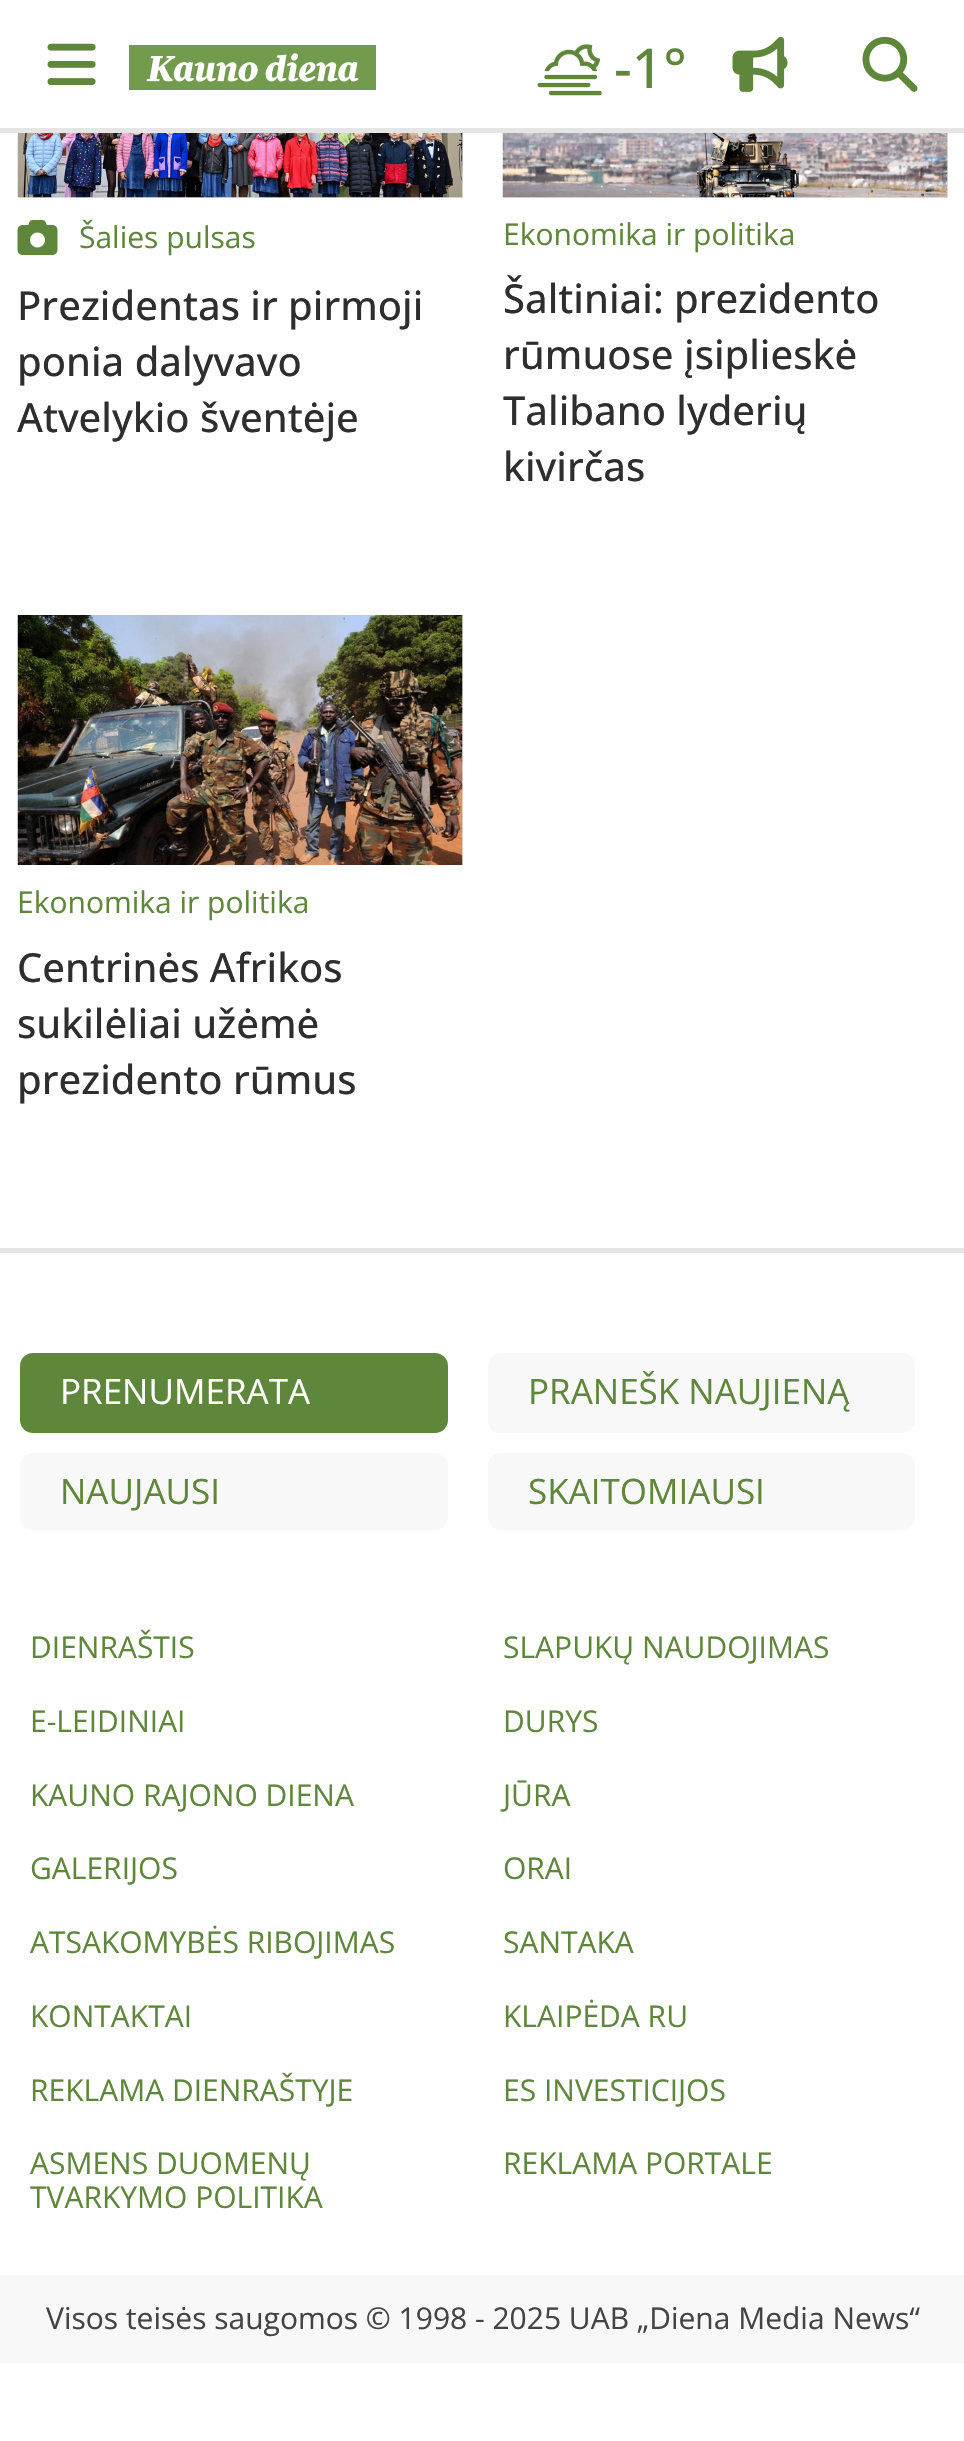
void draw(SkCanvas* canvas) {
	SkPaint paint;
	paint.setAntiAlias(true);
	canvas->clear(0xffffffff);
	paint.setColor(0xffe5e5e5);
	canvas->drawRect(SkRect::MakeXYWH(0, 128, 964, 5), paint);
	canvas->drawImageRect(SkImages::DeferredFromEncodedData(SkData::MakeFromFileName("img1.png")), SkRect::MakeXYWH(47, 43, 49, 42), SkSamplingOptions());
	canvas->drawImageRect(SkImages::DeferredFromEncodedData(SkData::MakeFromFileName("img2.png")), SkRect::MakeXYWH(129, 45, 247, 45), SkSamplingOptions());
	canvas->drawImageRect(SkImages::DeferredFromEncodedData(SkData::MakeFromFileName("img3.png")), SkRect::MakeXYWH(537, 44, 65, 52), SkSamplingOptions());
	SkFont f1(fontMgr->matchFamilyStyle("Open Sans", SkFontStyle(500, SkFontStyle::kNormal_Width, SkFontStyle::kUpright_Slant)), 55);
	f1.setSubpixel(true);
	paint.setColor(0xff5f873b);
	canvas->drawString("-1°", 614, 88, f1, paint);
	canvas->drawImageRect(SkImages::DeferredFromEncodedData(SkData::MakeFromFileName("img4.png")), SkRect::MakeXYWH(732, 36, 56, 56), SkSamplingOptions());
	canvas->drawImageRect(SkImages::DeferredFromEncodedData(SkData::MakeFromFileName("img5.png")), SkRect::MakeXYWH(862, 36, 56, 56), SkSamplingOptions());
	paint.setColor(0xffe5e5e5);
	canvas->drawRect(SkRect::MakeXYWH(18, 133, 445, 65), paint);
	canvas->drawImageRect(SkImages::DeferredFromEncodedData(SkData::MakeFromFileName("img6.png")), SkRect::MakeXYWH(17, 133, 446, 65), SkSamplingOptions());
	canvas->drawImageRect(SkImages::DeferredFromEncodedData(SkData::MakeFromFileName("img7.png")), SkRect::MakeXYWH(17, 220, 41, 35), SkSamplingOptions());
	SkFont f2(fontMgr->matchFamilyStyle("Open Sans", SkFontStyle::Normal()), 30);
	f2.setSubpixel(true);
	paint.setColor(0xff5f873b);
	canvas->drawString("Šalies pulsas", 79, 248, f2, paint);
	SkFont f3(fontMgr->matchFamilyStyle("Open Sans", SkFontStyle(500, SkFontStyle::kNormal_Width, SkFontStyle::kUpright_Slant)), 40);
	f3.setSubpixel(true);
	paint.setColor(0xff2e2e2e);
	canvas->drawString("Prezidentas ir pirmoji", 17, 320, f3, paint);
	canvas->drawString("ponia dalyvavo", 17, 376, f3, paint);
	canvas->drawString("Atvelykio šventėje", 17, 432, f3, paint);
	paint.setColor(0xffe5e5e5);
	canvas->drawRect(SkRect::MakeXYWH(503, 133, 445, 65), paint);
	canvas->drawImageRect(SkImages::DeferredFromEncodedData(SkData::MakeFromFileName("img8.png")), SkRect::MakeXYWH(502, 133, 446, 65), SkSamplingOptions());
	paint.setColor(0xff5f873b);
	canvas->drawString("Ekonomika ir politika", 503, 245, f2, paint);
	paint.setColor(0xff2e2e2e);
	canvas->drawString("Šaltiniai: prezidento", 503, 313, f3, paint);
	canvas->drawString("rūmuose įsiplieskė", 503, 369, f3, paint);
	canvas->drawString("Talibano lyderių", 503, 425, f3, paint);
	canvas->drawString("kivirčas", 503, 481, f3, paint);
	paint.setColor(0xffe5e5e5);
	canvas->drawRect(SkRect::MakeXYWH(462, 615, 1, 250), paint);
	canvas->drawImageRect(SkImages::DeferredFromEncodedData(SkData::MakeFromFileName("img9.png")), SkRect::MakeXYWH(17, 615, 446, 250), SkSamplingOptions());
	paint.setColor(0xff5f873b);
	canvas->drawString("Ekonomika ir politika", 17, 913, f2, paint);
	paint.setColor(0xff2e2e2e);
	canvas->drawString("Centrinės Afrikos", 17, 982, f3, paint);
	canvas->drawString("sukilėliai užėmė", 17, 1038, f3, paint);
	canvas->drawString("prezidento rūmus", 17, 1094, f3, paint);
	paint.setColor(0xffe5e5e5);
	canvas->drawRect(SkRect::MakeXYWH(0, 1248, 964, 5), paint);
	paint.setColor(0xff5f873b);
	canvas->drawRoundRect(SkRect::MakeXYWH(20, 1353, 428, 80), 13, 13, paint);
	SkFont f4(fontMgr->matchFamilyStyle("Open Sans", SkFontStyle::Normal()), 35);
	f4.setSubpixel(true);
	paint.setColor(0xffffffff);
	canvas->drawString("PRENUMERATA", 60, 1404, f4, paint);
	paint.setColor(0xfff8f8f8);
	canvas->drawRoundRect(SkRect::MakeXYWH(488, 1353, 427, 80), 13, 13, paint);
	paint.setColor(0xff5f873b);
	canvas->drawString("PRANEŠK NAUJIENĄ", 528, 1404, f4, paint);
	paint.setColor(0xfff8f8f8);
	canvas->drawRoundRect(SkRect::MakeXYWH(20, 1453, 428, 77), 13, 13, paint);
	paint.setColor(0xff5f873b);
	canvas->drawString("NAUJAUSI", 60, 1504, f4, paint);
	paint.setColor(0xfff8f8f8);
	canvas->drawRoundRect(SkRect::MakeXYWH(488, 1453, 427, 77), 13, 13, paint);
	paint.setColor(0xff5f873b);
	canvas->drawString("SKAITOMIAUSI", 528, 1504, f4, paint);
	canvas->drawString("DIENRAŠTIS", 30, 1658, f2, paint);
	canvas->drawString("SLAPUKŲ NAUDOJIMAS", 503, 1658, f2, paint);
	canvas->drawString("E-LEIDINIAI", 30, 1732, f2, paint);
	canvas->drawString("DURYS", 503, 1732, f2, paint);
	canvas->drawString("KAUNO RAJONO DIENA", 30, 1806, f2, paint);
	canvas->drawString("JŪRA", 503, 1806, f2, paint);
	canvas->drawString("GALERIJOS", 30, 1879, f2, paint);
	canvas->drawString("ORAI", 503, 1879, f2, paint);
	canvas->drawString("ATSAKOMYBĖS RIBOJIMAS", 30, 1953, f2, paint);
	canvas->drawString("SANTAKA", 503, 1953, f2, paint);
	canvas->drawString("KONTAKTAI", 30, 2027, f2, paint);
	canvas->drawString("KLAIPĖDA RU", 503, 2027, f2, paint);
	canvas->drawString("REKLAMA DIENRAŠTYJE", 30, 2101, f2, paint);
	canvas->drawString("ES INVESTICIJOS", 503, 2101, f2, paint);
	canvas->drawString("ASMENS DUOMENŲ", 30, 2174, f2, paint);
	canvas->drawString("TVARKYMO POLITIKA", 30, 2208, f2, paint);
	canvas->drawString("REKLAMA PORTALE", 503, 2174, f2, paint);
	paint.setColor(0xfff8f8f8);
	canvas->drawRect(SkRect::MakeXYWH(0, 2275, 964, 88), paint);
	paint.setColor(0xff444444);
	canvas->drawString("Visos teisės saugomos © 1998 - 2025 UAB „Diena Media News“", 46, 2329, f2, paint);
}
